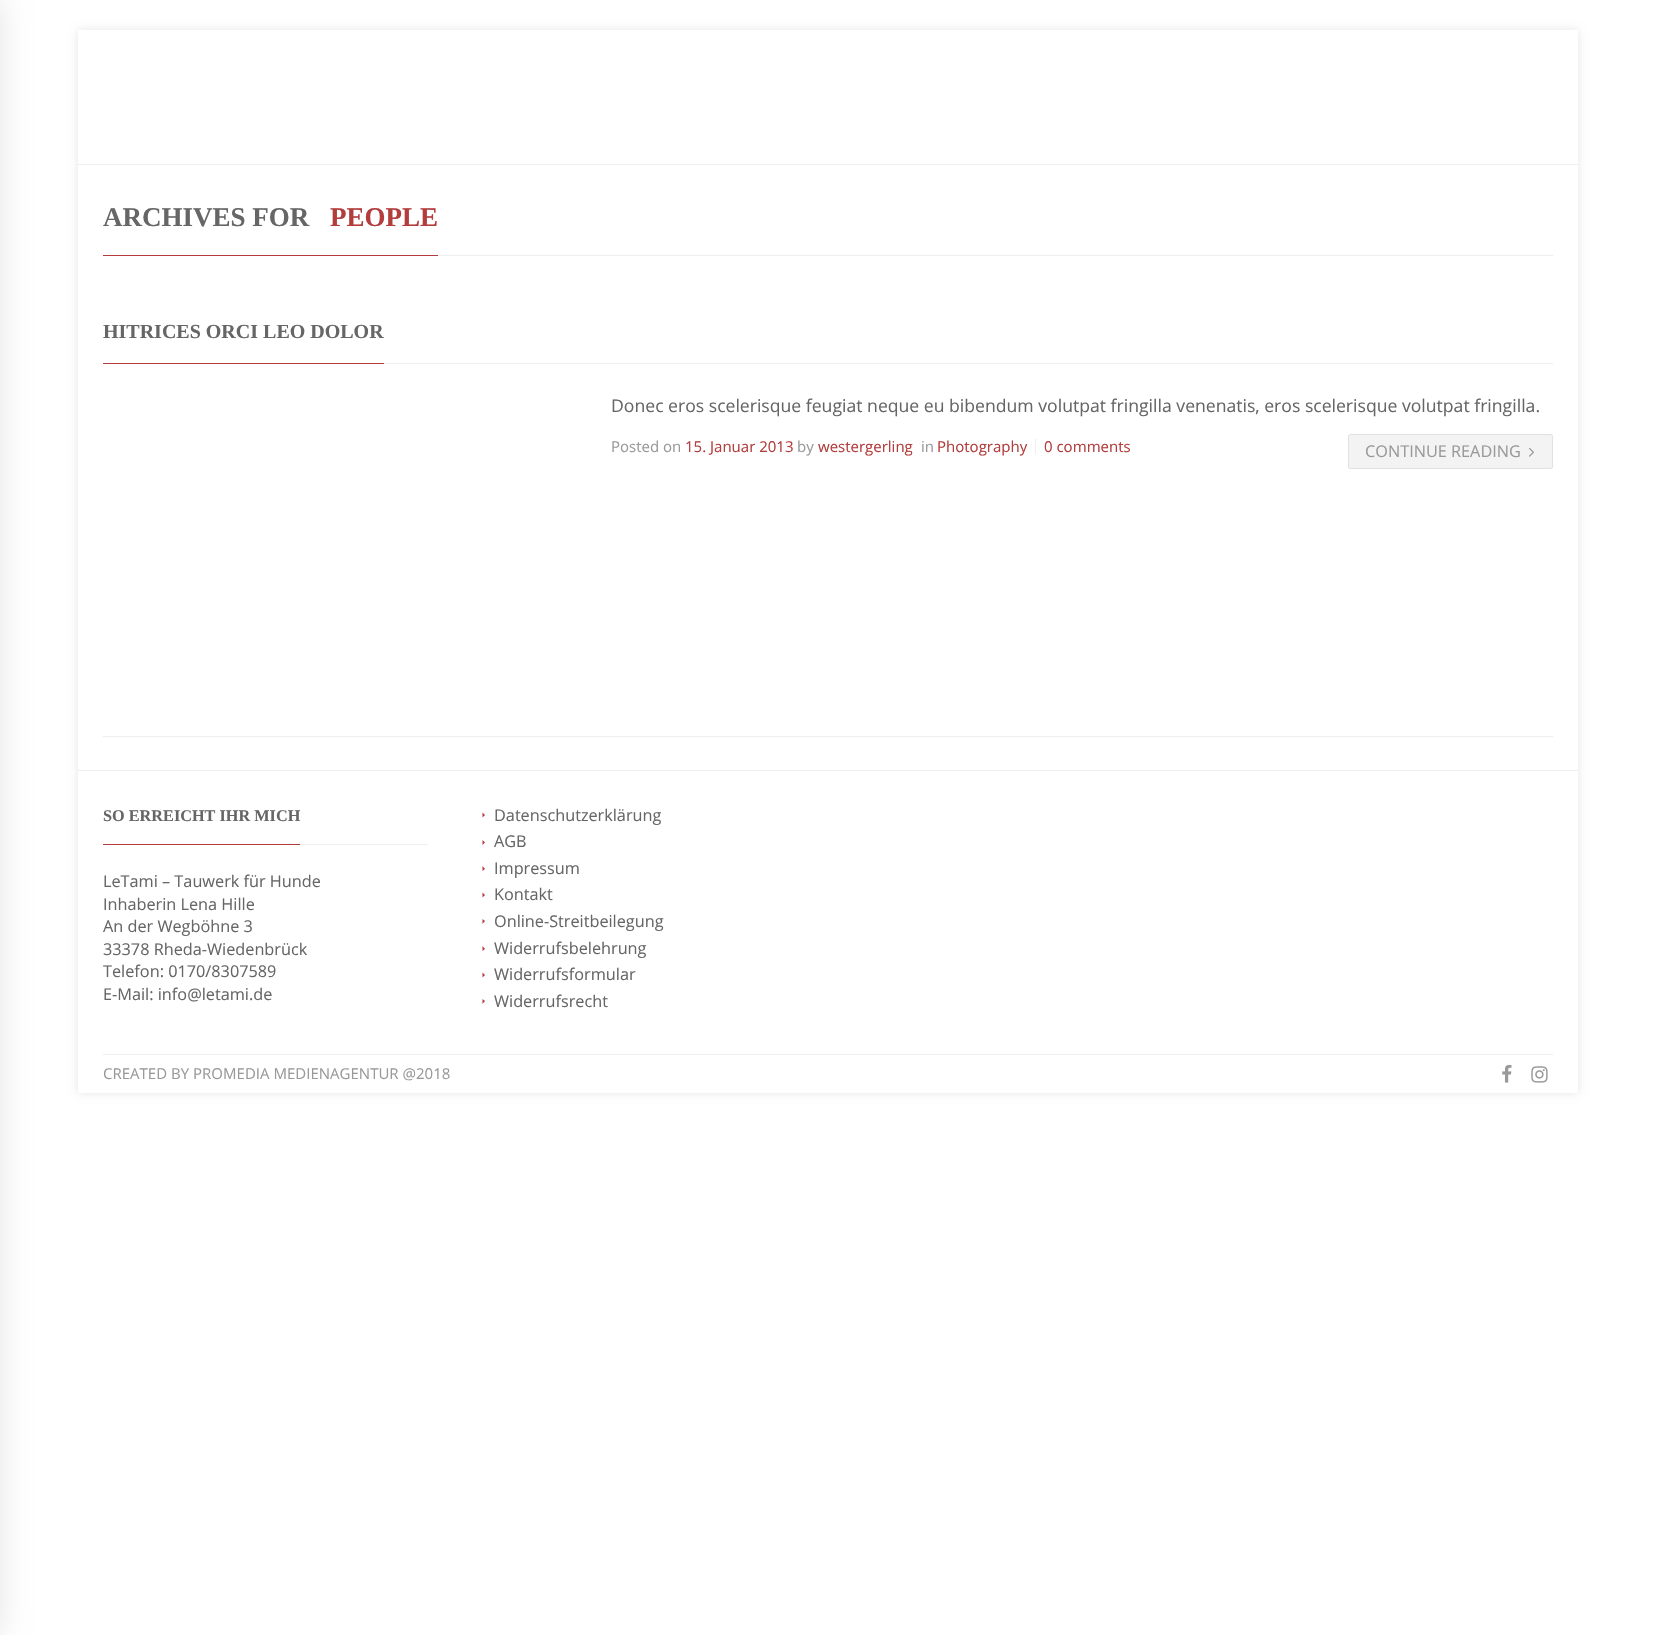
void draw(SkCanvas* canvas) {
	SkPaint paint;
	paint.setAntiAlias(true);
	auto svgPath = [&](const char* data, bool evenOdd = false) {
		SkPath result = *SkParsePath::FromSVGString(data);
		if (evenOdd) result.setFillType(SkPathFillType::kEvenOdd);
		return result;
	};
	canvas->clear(0xffffffff);
	paint.setColor(0x1a000000);
	paint.setMaskFilter(SkMaskFilter::MakeBlur(kNormal_SkBlurStyle, 4));
	canvas->drawRect(SkRect::MakeXYWH(78, 30, 1500, 1063), paint);
	paint.setMaskFilter(nullptr);
	paint.setColor(0xffffffff);
	canvas->drawRect(SkRect::MakeXYWH(78, 30, 1500, 1063), paint);
	paint.setColor(0x1a000000);
	paint.setMaskFilter(SkMaskFilter::MakeBlur(kNormal_SkBlurStyle, 15.5));
	canvas->drawRect(SkRect::MakeXYWH(-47, 0, 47, 1635), paint);
	paint.setMaskFilter(nullptr);
	paint.setColor(0xffeeeeee);
	canvas->drawRect(SkRect::MakeXYWH(78, 164, 1500, 1), paint);
	canvas->drawRect(SkRect::MakeXYWH(438, 255, 1115, 1), paint);
	paint.setColor(0xffb33c3c);
	canvas->drawRect(SkRect::MakeXYWH(103, 255, 335, 1), paint);
	SkFont f1(fontMgr->matchFamilyStyle("Liberation Serif", SkFontStyle::Bold()), 27);
	f1.setSubpixel(true);
	paint.setColor(0xff666666);
	canvas->drawString("ARCHIVES FOR", 103, 226, f1, paint);
	paint.setColor(0xffb33c3c);
	canvas->drawString("PEOPLE", 330, 226, f1, paint);
	paint.setColor(0xffeeeeee);
	canvas->drawRect(SkRect::MakeXYWH(103, 736, 1450, 1), paint);
	canvas->drawRect(SkRect::MakeXYWH(384, 363, 1169, 1), paint);
	paint.setColor(0xffb33c3c);
	canvas->drawRect(SkRect::MakeXYWH(103, 363, 281, 1), paint);
	SkFont f2(fontMgr->matchFamilyStyle("Liberation Serif", SkFontStyle::Bold()), 20);
	f2.setSubpixel(true);
	paint.setColor(0xff666666);
	canvas->drawString("HITRICES ORCI LEO DOLOR", 103, 338, f2, paint);
	SkFont f3(fontMgr->matchFamilyStyle("Open Sans", SkFontStyle::Normal()), 17.6);
	f3.setSubpixel(true);
	canvas->drawString("Donec eros scelerisque feugiat neque eu bibendum volutpat fringilla venenatis, eros scelerisque volutpat fringilla.", 611, 412, f3, paint);
	SkFont f4(fontMgr->matchFamilyStyle("Open Sans", SkFontStyle::Normal()), 15);
	f4.setSubpixel(true);
	paint.setColor(0xff999999);
	canvas->drawString("Posted on", 611, 452, f4, paint);
	paint.setColor(0xffb33c3c);
	canvas->drawString("15. Januar 2013", 685, 452, f4, paint);
	paint.setColor(0xff999999);
	canvas->drawString("by", 797, 452, f4, paint);
	paint.setColor(0xffb33c3c);
	canvas->drawString("westergerling", 818, 452, f4, paint);
	paint.setColor(0xff999999);
	canvas->drawString("in", 921, 452, f4, paint);
	paint.setColor(0xffb33c3c);
	canvas->drawString("Photography", 937, 452, f4, paint);
	paint.setColor(0xffeeeeee);
	canvas->drawRect(SkRect::MakeXYWH(1035, 439, 1, 15), paint);
	paint.setColor(0xffb33c3c);
	canvas->drawString("0 comments", 1044, 452, f4, paint);
	paint.setColor(0xfff3f3f3);
	canvas->drawRoundRect(SkRect::MakeXYWH(1348, 434, 205, 35), 2.5, 2.5, paint);
	paint.setStroke(true);
	paint.setStrokeWidth(1);
	paint.setColor(0x12000000);
	canvas->drawRoundRect(SkRect::MakeXYWH(1348.5, 434.5, 204, 34), 2, 2, paint);
	SkFont f5(fontMgr->matchFamilyStyle("Open Sans", SkFontStyle::Normal()), 16.25);
	f5.setSubpixel(true);
	paint.setStroke(false);
	paint.setColor(0xff999999);
	canvas->drawString("CONTINUE READING", 1365, 457, f5, paint);
	canvas->drawImageRect(SkImages::DeferredFromEncodedData(SkData::MakeFromFileName("img1.png")), SkRect::MakeXYWH(1529, 447, 5, 10), SkSamplingOptions());
	paint.setColor(0xffeeeeee);
	canvas->drawRect(SkRect::MakeXYWH(78, 770, 1500, 1), paint);
	canvas->drawRect(SkRect::MakeXYWH(300, 844, 128, 1), paint);
	paint.setColor(0xffb33c3c);
	canvas->drawRect(SkRect::MakeXYWH(103, 844, 197, 1), paint);
	SkFont f6(fontMgr->matchFamilyStyle("Liberation Serif", SkFontStyle::Bold()), 16.25);
	f6.setSubpixel(true);
	paint.setColor(0xff666666);
	canvas->drawString("SO ERREICHT IHR MICH", 103, 821, f6, paint);
	canvas->drawString("LeTami – Tauwerk für Hunde", 103, 887, f5, paint);
	canvas->drawString("Inhaberin Lena Hille", 103, 910, f5, paint);
	canvas->drawString("An der Wegböhne 3", 103, 932, f5, paint);
	canvas->drawString("33378 Rheda-Wiedenbrück", 103, 955, f5, paint);
	canvas->drawString("Telefon: 0170/8307589", 103, 977, f5, paint);
	canvas->drawString("E-Mail: info@letami.de", 103, 1000, f5, paint);
	paint.setColor(0xffb33c3c);
	canvas->drawPath(svgPath("M482.5 817.5V812.5L485 815Z"), paint);
	paint.setColor(0xff666666);
	canvas->drawString("Datenschutzerklärung", 494, 821, f5, paint);
	paint.setColor(0xffb33c3c);
	canvas->drawPath(svgPath("M482.5 845V840L485 842.5Z"), paint);
	paint.setColor(0xff666666);
	canvas->drawString("AGB", 494, 847, f5, paint);
	paint.setColor(0xffb33c3c);
	canvas->drawPath(svgPath("M482.5 871V866L485 869Z"), paint);
	paint.setColor(0xff666666);
	canvas->drawString("Impressum", 494, 874, f5, paint);
	paint.setColor(0xffb33c3c);
	canvas->drawPath(svgPath("M482.5 897.5V892.5L485 895Z"), paint);
	paint.setColor(0xff666666);
	canvas->drawString("Kontakt", 494, 900, f5, paint);
	paint.setColor(0xffb33c3c);
	canvas->drawPath(svgPath("M482.5 924V919L485 921Z"), paint);
	paint.setColor(0xff666666);
	canvas->drawString("Online-Streitbeilegung", 494, 927, f5, paint);
	paint.setColor(0xffb33c3c);
	canvas->drawPath(svgPath("M482.5 951V946L485 949Z"), paint);
	paint.setColor(0xff666666);
	canvas->drawString("Widerrufsbelehrung", 494, 954, f5, paint);
	paint.setColor(0xffb33c3c);
	canvas->drawPath(svgPath("M482.5 977.5V972.5L485 975Z"), paint);
	paint.setColor(0xff666666);
	canvas->drawString("Widerrufsformular", 494, 980, f5, paint);
	paint.setColor(0xffb33c3c);
	canvas->drawPath(svgPath("M482.5 1004V999L485 1001Z"), paint);
	paint.setColor(0xff666666);
	canvas->drawString("Widerrufsrecht", 494, 1007, f5, paint);
	paint.setColor(0xffeeeeee);
	canvas->drawRect(SkRect::MakeXYWH(103, 1054, 1450, 1), paint);
	paint.setColor(0xff999999);
	canvas->drawString("CREATED BY PROMEDIA MEDIENAGENTUR @2018", 103, 1079, f4, paint);
	canvas->drawImageRect(SkImages::DeferredFromEncodedData(SkData::MakeFromFileName("img2.png")), SkRect::MakeXYWH(1502, 1064, 10, 19), SkSamplingOptions());
	canvas->drawImageRect(SkImages::DeferredFromEncodedData(SkData::MakeFromFileName("img3.png")), SkRect::MakeXYWH(1531, 1066, 17, 17), SkSamplingOptions());
}
